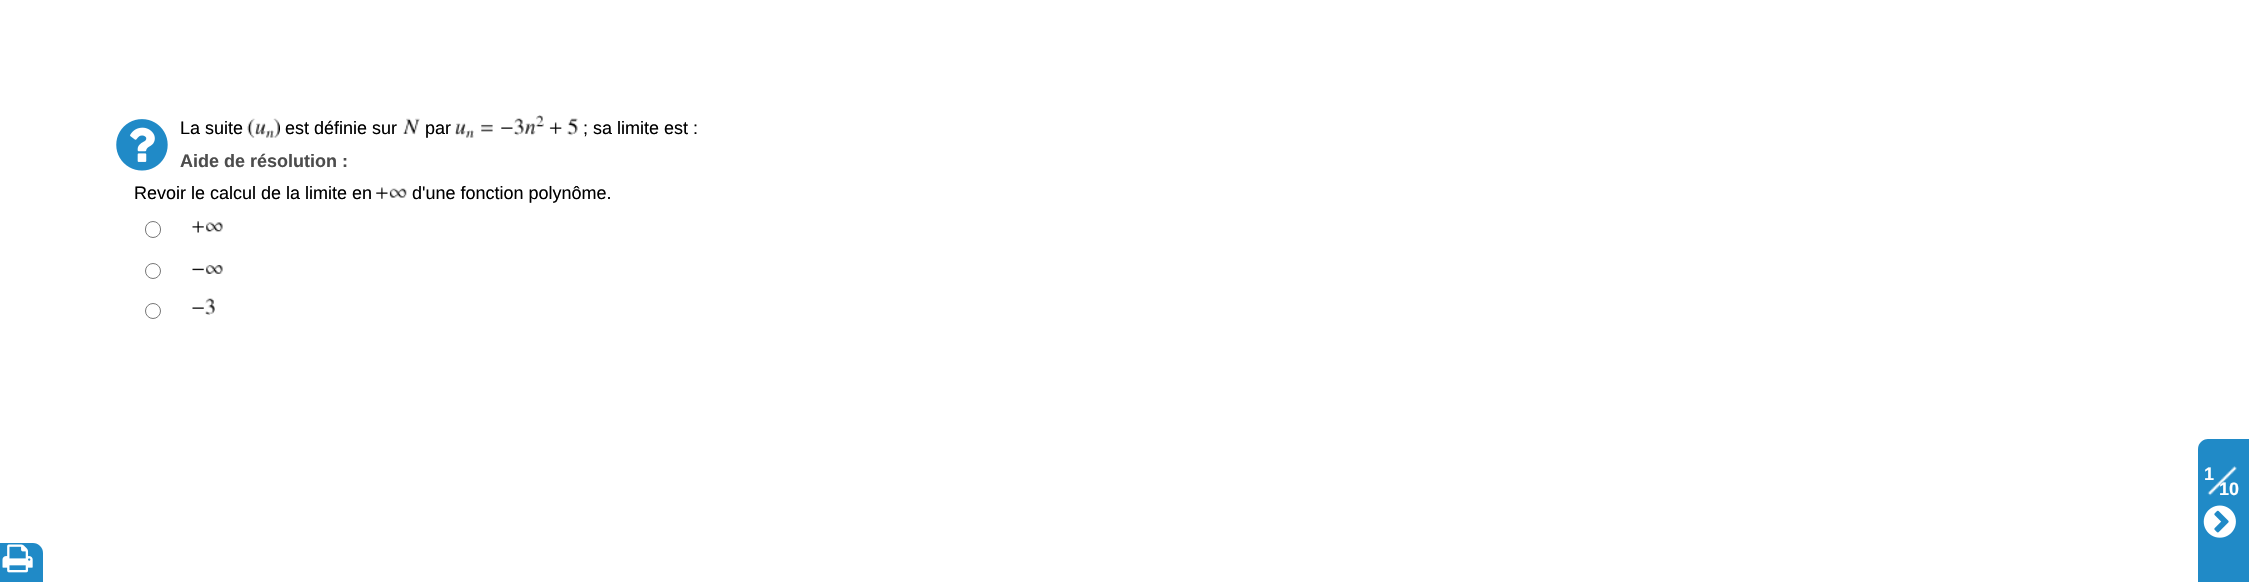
void draw(SkCanvas* canvas) {
	SkPaint paint;
	paint.setAntiAlias(true);
	auto svgPath = [&](const char* data, bool evenOdd = false) {
		SkPath result = *SkParsePath::FromSVGString(data);
		if (evenOdd) result.setFillType(SkPathFillType::kEvenOdd);
		return result;
	};
	canvas->clear(0xffffffff);
	canvas->drawImageRect(SkImages::DeferredFromEncodedData(SkData::MakeFromFileName("img1.png")), SkRect::MakeXYWH(116, 119, 52, 52), SkSamplingOptions());
	SkFont f1(fontMgr->matchFamilyStyle("Liberation Sans", SkFontStyle::Normal()), 18);
	f1.setSubpixel(true);
	paint.setColor(0xff000000);
	canvas->drawString("La suite", 180, 134, f1, paint);
	canvas->drawImageRect(SkImages::DeferredFromEncodedData(SkData::MakeFromFileName("img2.png")), SkRect::MakeXYWH(247, 118, 33, 20), SkSamplingOptions());
	canvas->drawString("est définie sur", 285, 134, f1, paint);
	canvas->drawImageRect(SkImages::DeferredFromEncodedData(SkData::MakeFromFileName("img3.png")), SkRect::MakeXYWH(403, 118, 17, 17), SkSamplingOptions());
	canvas->drawString("par", 425, 134, f1, paint);
	canvas->drawImageRect(SkImages::DeferredFromEncodedData(SkData::MakeFromFileName("img4.png")), SkRect::MakeXYWH(455, 115, 123, 23), SkSamplingOptions());
	canvas->drawString("; sa limite est :", 583, 134, f1, paint);
	SkFont f2(fontMgr->matchFamilyStyle("Liberation Sans", SkFontStyle::Bold()), 18);
	f2.setSubpixel(true);
	paint.setColor(0xff4d4d4d);
	canvas->drawString("Aide de résolution :", 180, 167, f2, paint);
	paint.setColor(0xff000000);
	canvas->drawString("Revoir le calcul de la limite en", 134, 199, f1, paint);
	canvas->drawImageRect(SkImages::DeferredFromEncodedData(SkData::MakeFromFileName("img5.png")), SkRect::MakeXYWH(376, 187, 31, 12), SkSamplingOptions());
	canvas->drawString("d'une fonction polynôme.", 412, 199, f1, paint);
	paint.setStroke(true);
	paint.setStrokeWidth(1);
	paint.setColor(0xff767676);
	canvas->drawRoundRect(SkRect::MakeXYWH(145.5, 221.5, 15, 16), 7.5, 7.5, paint);
	canvas->drawImageRect(SkImages::DeferredFromEncodedData(SkData::MakeFromFileName("img6.png")), SkRect::MakeXYWH(192, 221, 31, 12), SkSamplingOptions());
	canvas->drawCircle(153, 271, 7.5, paint);
	canvas->drawImageRect(SkImages::DeferredFromEncodedData(SkData::MakeFromFileName("img7.png")), SkRect::MakeXYWH(192, 265, 31, 9), SkSamplingOptions());
	canvas->drawCircle(153, 311, 7.5, paint);
	canvas->drawImageRect(SkImages::DeferredFromEncodedData(SkData::MakeFromFileName("img8.png")), SkRect::MakeXYWH(192, 298, 23, 17), SkSamplingOptions());
	paint.setStroke(false);
	paint.setColor(0xff208ac7);
	canvas->drawPath(svgPath("M2208 439H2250V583H2198V449C2198 443.5 2202.5 439 2208 439Z"), paint);
	canvas->drawImageRect(SkImages::DeferredFromEncodedData(SkData::MakeFromFileName("img9.png")), SkRect::MakeXYWH(2207, 466, 30, 30), SkSamplingOptions());
	paint.setColor(0xffffffff);
	canvas->drawString("1", 2204, 480, f2, paint);
	canvas->drawString("10", 2219, 495, f2, paint);
	canvas->drawImageRect(SkImages::DeferredFromEncodedData(SkData::MakeFromFileName("img10.png")), SkRect::MakeXYWH(2203, 505, 33, 33), SkSamplingOptions());
	paint.setColor(0xff208ac7);
	canvas->drawPath(svgPath("M0 543H33C38.5 543 43 547.5 43 553V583H0Z"), paint);
	canvas->drawImageRect(SkImages::DeferredFromEncodedData(SkData::MakeFromFileName("img11.png")), SkRect::MakeXYWH(2, 544, 31, 29), SkSamplingOptions());
}
